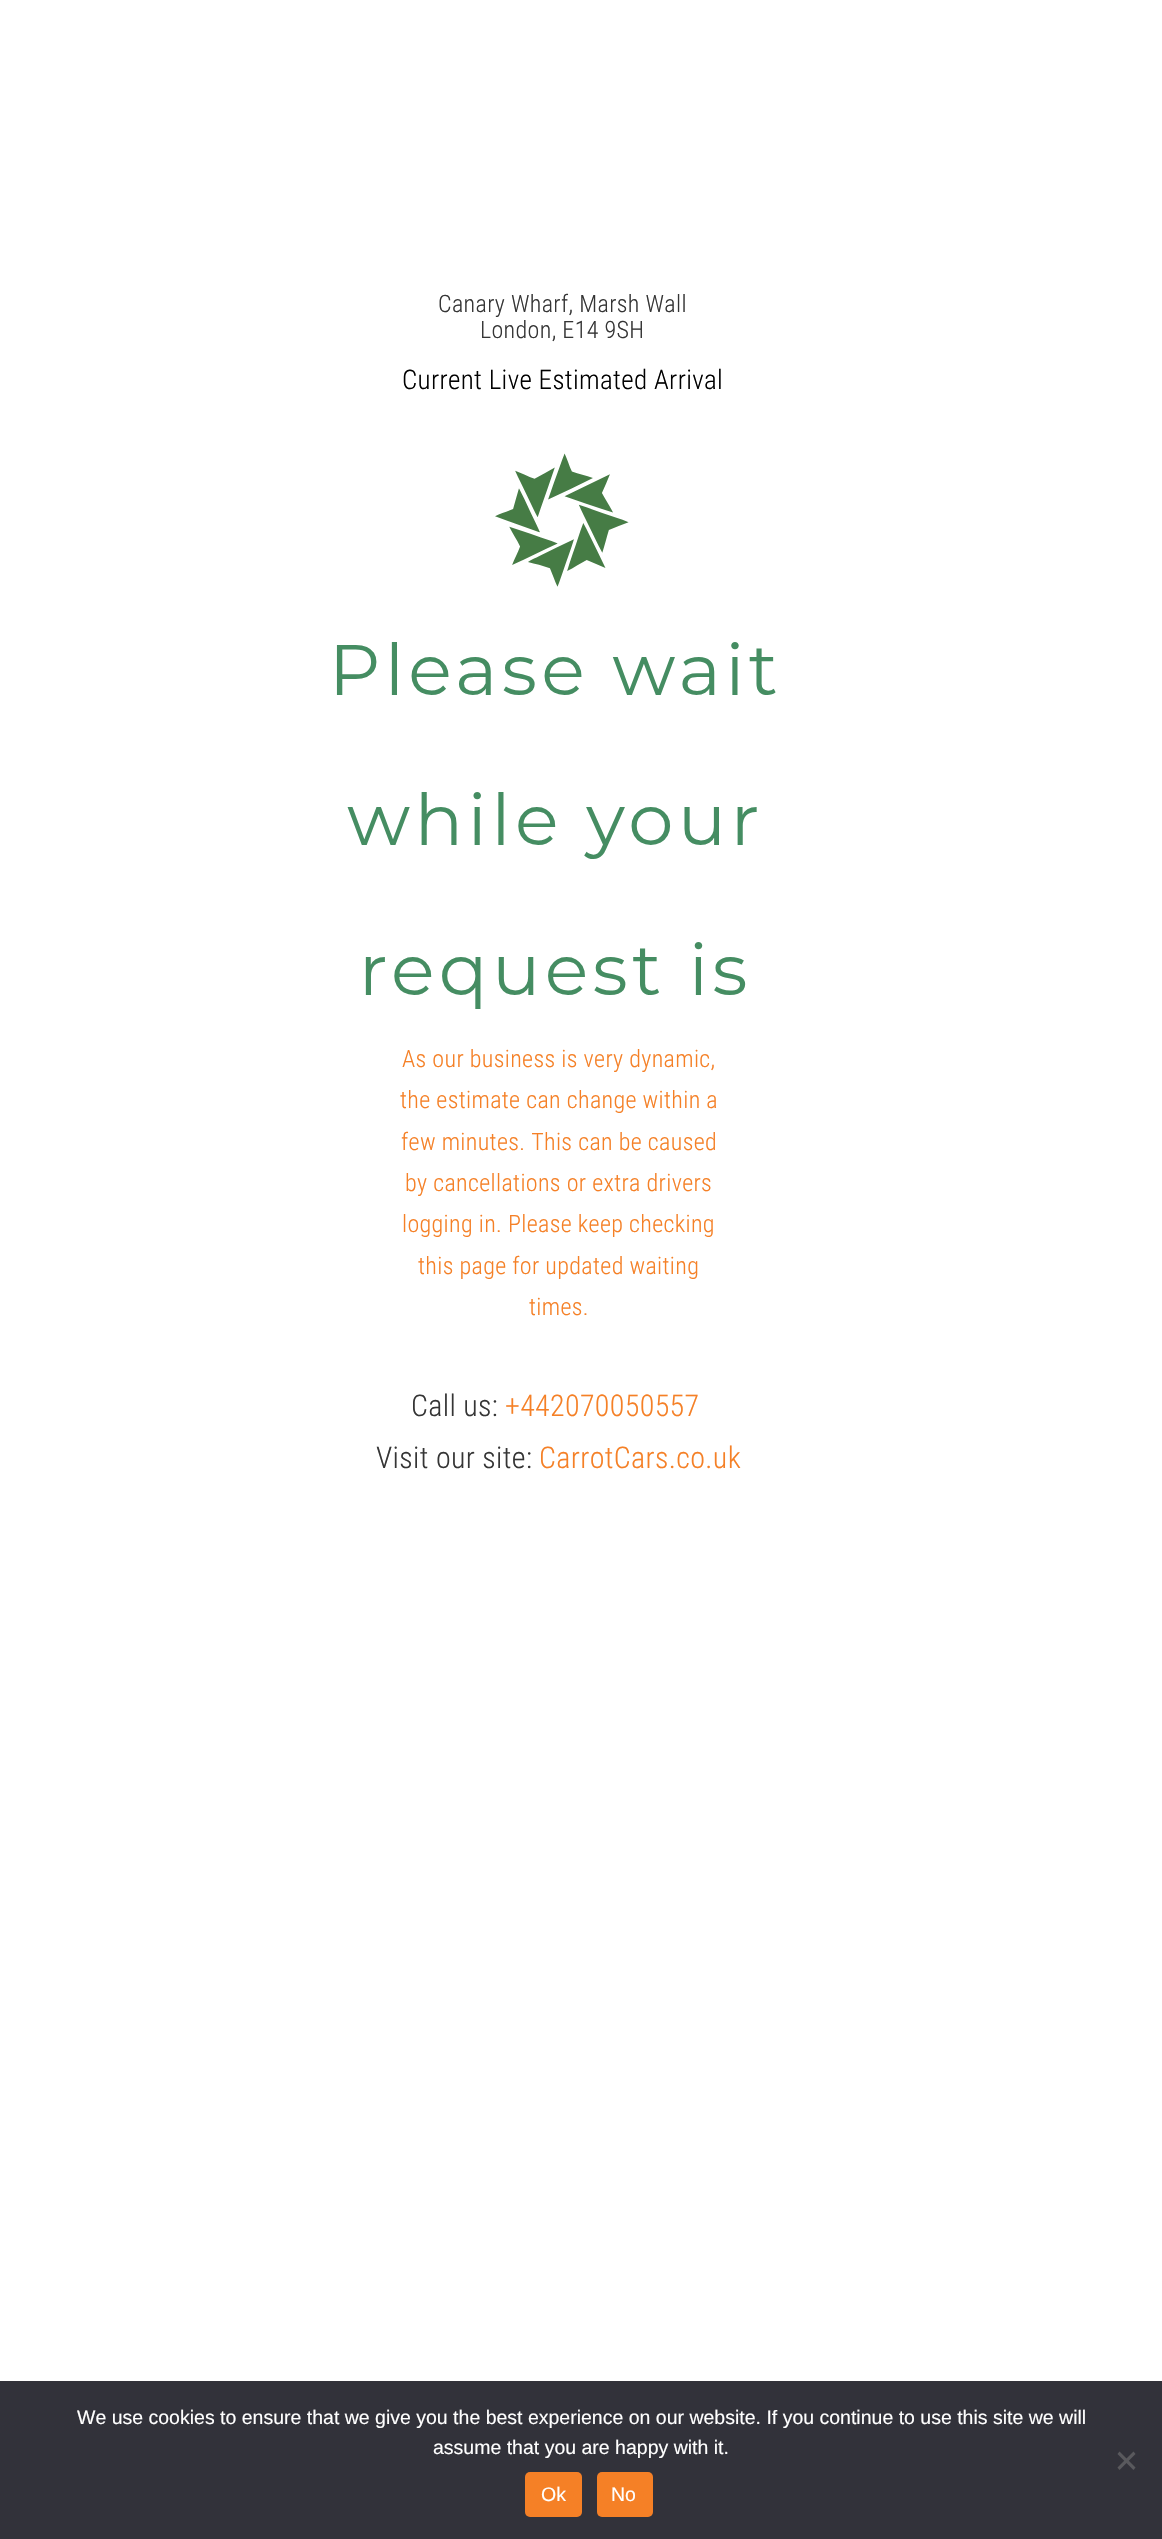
void draw(SkCanvas* canvas) {
	SkPaint paint;
	paint.setAntiAlias(true);
	auto spacedText = [&](const char* s, float x, float y, const SkFont& font, const SkPaint& ink, float letter, float word) {
		std::vector<SkGlyphID> glyphs(font.countText(s, strlen(s), SkTextEncoding::kUTF8));
		std::vector<float> xs(glyphs.size());
		font.textToGlyphs(s, strlen(s), SkTextEncoding::kUTF8, glyphs);
		font.getXPos(glyphs, xs, x);
		float extra = 0;
		for (size_t i = 0; i < glyphs.size(); i++) {
			xs[i] += extra;
			extra += letter + word * (glyphs[i] == font.unicharToGlyph(' '));
		}
		canvas->drawTextBlob(SkTextBlob::MakeFromPosHGlyphs(glyphs, xs, y, font), 0, 0, ink);
	};
	auto svgPath = [&](const char* data, bool evenOdd = false) {
		SkPath result = *SkParsePath::FromSVGString(data);
		if (evenOdd) result.setFillType(SkPathFillType::kEvenOdd);
		return result;
	};
	canvas->clear(0xffffffff);
	SkFont f1(fontMgr->matchFamilyStyle("Roboto Condensed", SkFontStyle(300, SkFontStyle::kNormal_Width, SkFontStyle::kUpright_Slant)), 24);
	f1.setSubpixel(true);
	paint.setColor(0xff353535);
	spacedText("Canary Wharf, Marsh Wall", 438, 312, f1, paint, 0.35, 0);
	spacedText("London, E14 9SH", 480, 338, f1, paint, 0.35, 0);
	SkFont f2(fontMgr->matchFamilyStyle("Roboto Condensed", SkFontStyle(300, SkFontStyle::kNormal_Width, SkFontStyle::kUpright_Slant)), 27);
	f2.setSubpixel(true);
	paint.setColor(0xff000000);
	spacedText("Current Live Estimated Arrival", 402, 389, f2, paint, 0.35, 0);
	canvas->drawImageRect(SkImages::DeferredFromEncodedData(SkData::MakeFromFileName("img1.png")), SkRect::MakeXYWH(336, 453, 440, 556), SkSamplingOptions());
	paint.setColor(0xfff58026);
	spacedText("As our business is very dynamic,", 402, 1067, f1, paint, 0.35, 0);
	spacedText("the estimate can change within a", 400, 1108, f1, paint, 0.35, 0);
	spacedText("few minutes. This can be caused", 401, 1150, f1, paint, 0.35, 0);
	spacedText("by cancellations or extra drivers", 405, 1191, f1, paint, 0.35, 0);
	spacedText("logging in. Please keep checking", 402, 1232, f1, paint, 0.35, 0);
	spacedText("this page for updated waiting", 418, 1274, f1, paint, 0.35, 0);
	spacedText("times.", 529, 1315, f1, paint, 0.35, 0);
	SkFont f3(fontMgr->matchFamilyStyle("Roboto Condensed", SkFontStyle(300, SkFontStyle::kNormal_Width, SkFontStyle::kUpright_Slant)), 30);
	f3.setSubpixel(true);
	paint.setColor(0xff353535);
	spacedText("Call us:", 411, 1416, f3, paint, 0.35, 0);
	paint.setColor(0xfff58026);
	spacedText("+442070050557", 505, 1416, f3, paint, 0.35, 0);
	paint.setColor(0xff353535);
	spacedText("Visit our site:", 376, 1468, f3, paint, 0.35, 0);
	paint.setColor(0xfff58026);
	spacedText("CarrotCars.co.uk", 539, 1468, f3, paint, 0.35, 0);
	paint.setColor(0xff32323a);
	canvas->drawRect(SkRect::MakeXYWH(0, 2381, 1162, 158), paint);
	SkFont f4(fontMgr->matchFamilyStyle("Liberation Sans", SkFontStyle::Normal()), 19.5);
	f4.setSubpixel(true);
	paint.setColor(0xffffffff);
	canvas->drawString("We use cookies to ensure that we give you the best experience on our website. If you continue to use this site we will", 77, 2424, f4, paint);
	canvas->drawString("assume that you are happy with it.", 433, 2454, f4, paint);
	paint.setColor(0xff59595d);
	canvas->drawPath(svgPath("M1133.5 2451.5L1135.5 2454L1119.5 2470L1117.5 2467.5Z"), paint);
	canvas->drawPath(svgPath("M1117.5 2454L1119.5 2451.5L1135.5 2467.5L1133.5 2470Z"), paint);
	paint.setColor(0xfff58026);
	canvas->drawRoundRect(SkRect::MakeXYWH(525, 2472, 57, 45), 5, 5, paint);
	paint.setColor(0xffffffff);
	canvas->drawString("Ok", 541, 2501, f4, paint);
	paint.setColor(0xfff58026);
	canvas->drawRoundRect(SkRect::MakeXYWH(597, 2472, 56, 45), 5, 5, paint);
	paint.setColor(0xffffffff);
	canvas->drawString("No", 611, 2501, f4, paint);
}
